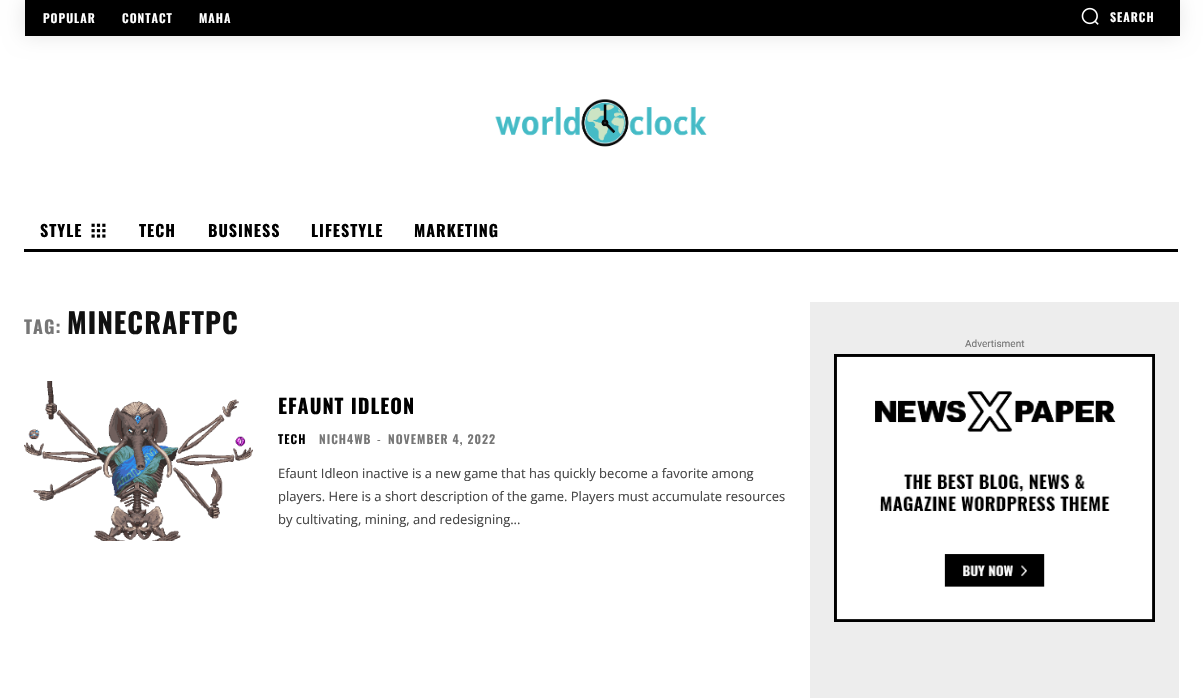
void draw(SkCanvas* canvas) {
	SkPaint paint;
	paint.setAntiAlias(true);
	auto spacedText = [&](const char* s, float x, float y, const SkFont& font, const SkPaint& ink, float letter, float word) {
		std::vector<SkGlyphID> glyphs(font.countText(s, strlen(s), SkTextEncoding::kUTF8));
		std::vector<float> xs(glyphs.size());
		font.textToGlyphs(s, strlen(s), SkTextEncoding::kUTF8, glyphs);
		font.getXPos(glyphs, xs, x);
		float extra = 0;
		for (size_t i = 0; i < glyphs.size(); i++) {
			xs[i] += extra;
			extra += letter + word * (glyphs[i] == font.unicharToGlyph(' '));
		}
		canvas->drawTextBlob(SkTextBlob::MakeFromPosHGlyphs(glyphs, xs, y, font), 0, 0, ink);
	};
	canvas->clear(0xffffffff);
	paint.setColor(0x1a000000);
	paint.setMaskFilter(SkMaskFilter::MakeBlur(kNormal_SkBlurStyle, 10));
	canvas->drawRect(SkRect::MakeXYWH(24, 0, 1155, 36), paint);
	paint.setMaskFilter(nullptr);
	paint.setColor(0xff000000);
	canvas->drawRect(SkRect::MakeXYWH(25, 0, 1155, 36), paint);
	SkFont f1(fontMgr->matchFamilyStyle("Oswald", SkFontStyle(600, SkFontStyle::kNormal_Width, SkFontStyle::kUpright_Slant)), 12);
	f1.setSubpixel(true);
	paint.setColor(0xffffffff);
	spacedText("POPULAR", 43, 23, f1, paint, 1, 0);
	spacedText("CONTACT", 122, 23, f1, paint, 1, 0);
	spacedText("MAHA", 199, 23, f1, paint, 1, 0);
	canvas->drawImageRect(SkImages::DeferredFromEncodedData(SkData::MakeFromFileName("img1.png")), SkRect::MakeXYWH(1081, 7, 18, 18), SkSamplingOptions());
	spacedText("SEARCH", 1110, 22, f1, paint, 1, 0);
	canvas->drawImageRect(SkImages::DeferredFromEncodedData(SkData::MakeFromFileName("img2.png")), SkRect::MakeXYWH(495, 99, 212, 48), SkSamplingOptions());
	SkFont f2(fontMgr->matchFamilyStyle("Oswald", SkFontStyle::Bold()), 16);
	f2.setSubpixel(true);
	paint.setColor(0xff000000);
	spacedText("STYLE", 40, 237, f2, paint, 1, 0);
	canvas->drawImageRect(SkImages::DeferredFromEncodedData(SkData::MakeFromFileName("img3.png")), SkRect::MakeXYWH(91, 223, 15, 15), SkSamplingOptions());
	spacedText("TECH", 139, 237, f2, paint, 1, 0);
	spacedText("BUSINESS", 208, 237, f2, paint, 1, 0);
	spacedText("LIFESTYLE", 311, 237, f2, paint, 1, 0);
	spacedText("MARKETING", 414, 237, f2, paint, 1, 0);
	canvas->drawRect(SkRect::MakeXYWH(24, 249, 1154, 3), paint);
	SkFont f3(fontMgr->matchFamilyStyle("Oswald", SkFontStyle::Bold()), 18);
	f3.setSubpixel(true);
	paint.setColor(0xff767676);
	spacedText("TAG:", 24, 334, f3, paint, 1, 0);
	SkFont f4(fontMgr->matchFamilyStyle("Oswald", SkFontStyle::Bold()), 28);
	f4.setSubpixel(true);
	paint.setColor(0xff111111);
	spacedText("MINECRAFTPC", 67, 334, f4, paint, 1, 0);
	canvas->drawImageRect(SkImages::DeferredFromEncodedData(SkData::MakeFromFileName("img4.png")), SkRect::MakeXYWH(24, 381, 229, 160), SkSamplingOptions());
	SkFont f5(fontMgr->matchFamilyStyle("Oswald", SkFontStyle::Bold()), 20);
	f5.setSubpixel(true);
	paint.setColor(0xff000000);
	spacedText("EFAUNT IDLEON", 278, 414, f5, paint, 1, 0);
	spacedText("TECH", 278, 444, f1, paint, 1, 0);
	paint.setColor(0xff767676);
	spacedText("NICH4WB", 319, 444, f1, paint, 1, 0);
	SkFont f6(fontMgr->matchFamilyStyle("Oswald", SkFontStyle::Normal()), 12);
	f6.setSubpixel(true);
	spacedText("-", 377, 444, f6, paint, 1, 0);
	spacedText("NOVEMBER 4, 2022", 388, 444, f1, paint, 1, 0);
	SkFont f7(fontMgr->matchFamilyStyle("Open Sans", SkFontStyle::Normal()), 13);
	f7.setSubpixel(true);
	paint.setColor(0xff444444);
	canvas->drawString("Efaunt Idleon inactive is a new game that has quickly become a favorite among", 278, 478, f7, paint);
	canvas->drawString("players. Here is a short description of the game. Players must accumulate resources", 278, 501, f7, paint);
	canvas->drawString("by cultivating, mining, and redesigning...", 278, 524, f7, paint);
	paint.setColor(0xffededed);
	canvas->drawRect(SkRect::MakeXYWH(810, 302, 369, 396), paint);
	SkFont f8(fontMgr->matchFamilyStyle("Roboto", SkFontStyle::Normal()), 10);
	f8.setSubpixel(true);
	paint.setColor(0xff767676);
	canvas->drawString("Advertisment", 965, 347, f8, paint);
	canvas->drawImageRect(SkImages::DeferredFromEncodedData(SkData::MakeFromFileName("img5.png")), SkRect::MakeXYWH(834, 354, 321, 268), SkSamplingOptions());
}
